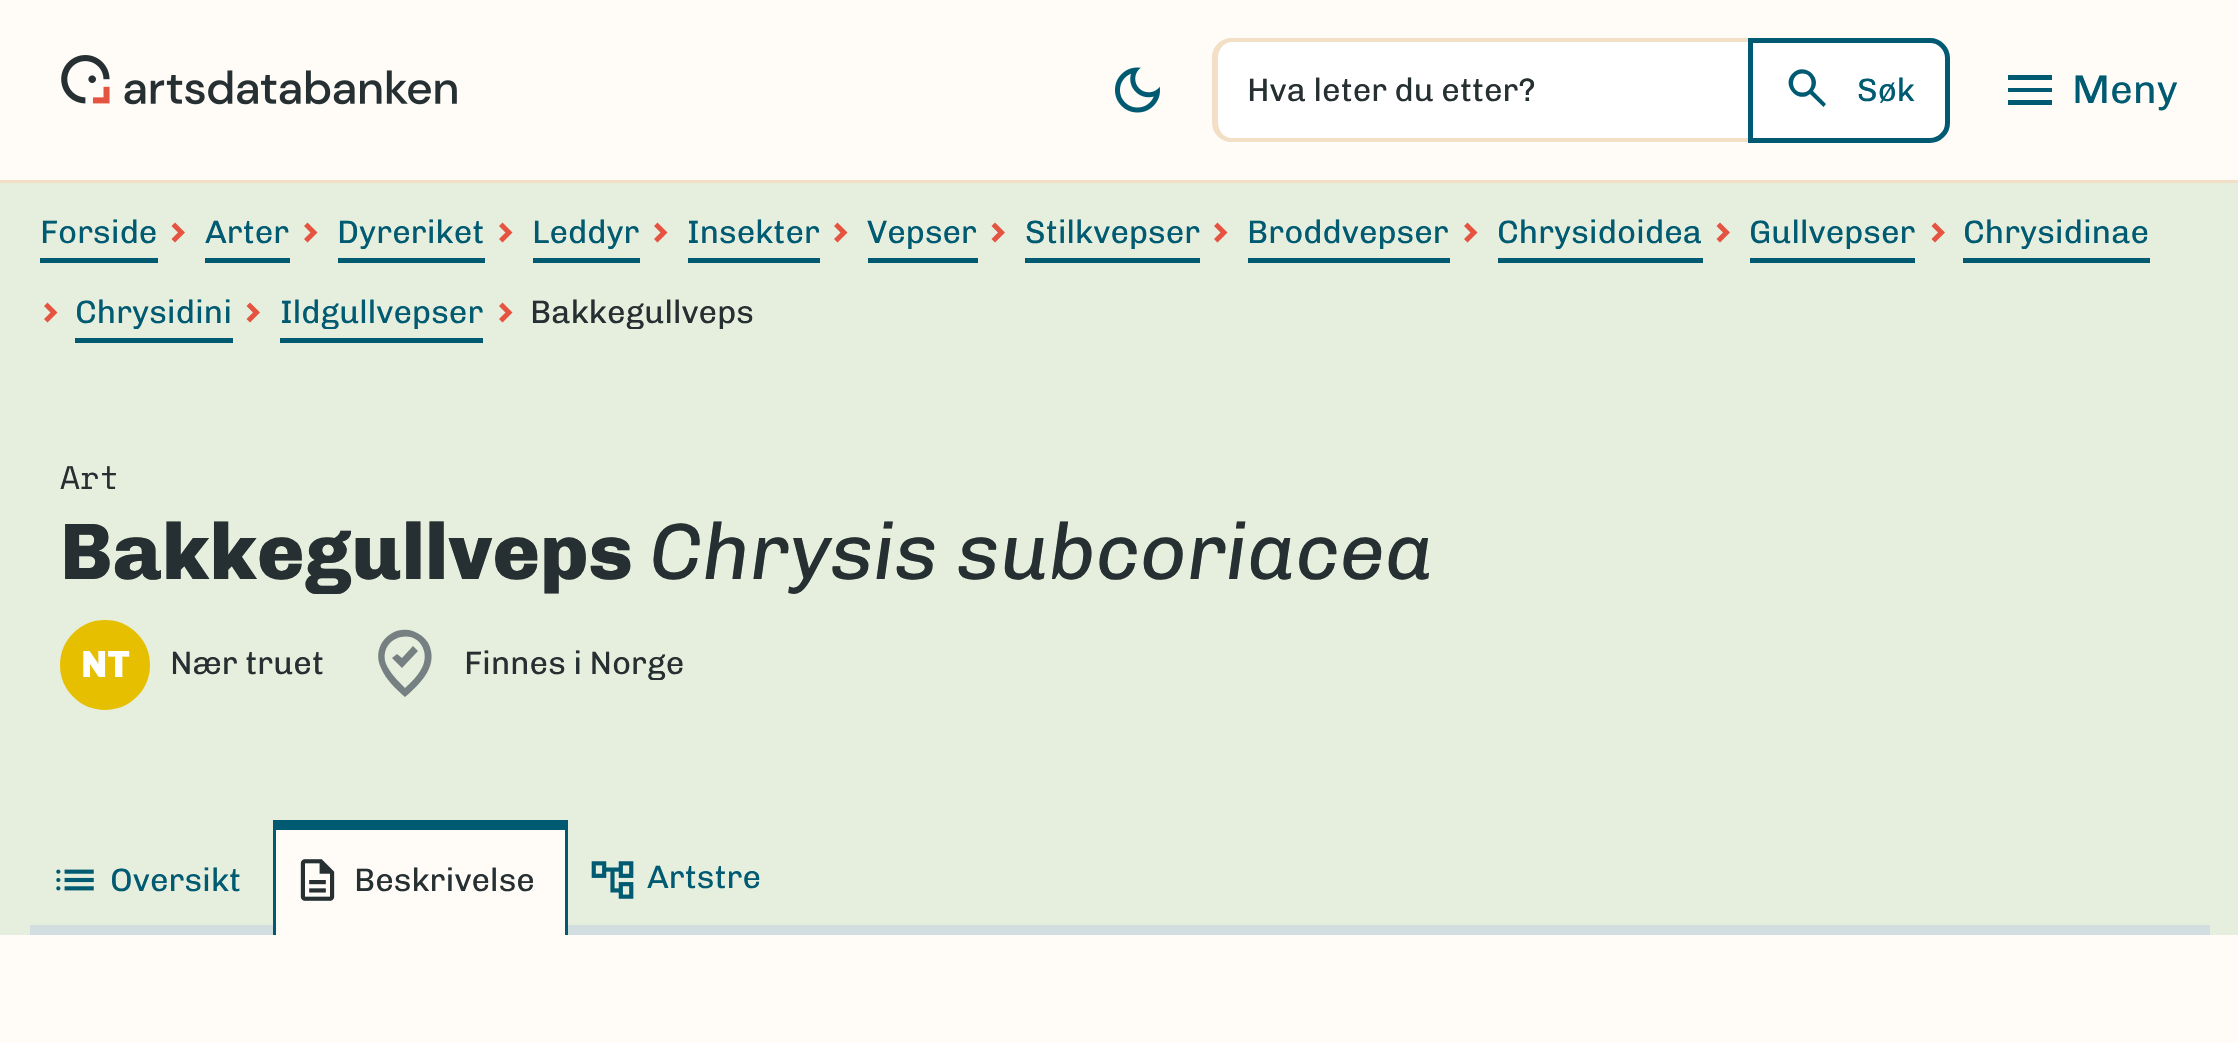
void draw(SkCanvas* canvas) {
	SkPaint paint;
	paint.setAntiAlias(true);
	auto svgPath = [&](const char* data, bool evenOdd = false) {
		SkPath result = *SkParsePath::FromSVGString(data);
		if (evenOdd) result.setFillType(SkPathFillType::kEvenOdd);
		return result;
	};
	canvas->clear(0xfffffcf7);
	paint.setColor(0xfff2dfc5);
	canvas->drawRect(SkRect::MakeXYWH(0, 180, 2238, 3), paint);
	canvas->drawImageRect(SkImages::DeferredFromEncodedData(SkData::MakeFromFileName("img1.png")), SkRect::MakeXYWH(61, 55, 396, 50), SkSamplingOptions());
	canvas->drawImageRect(SkImages::DeferredFromEncodedData(SkData::MakeFromFileName("img2.png")), SkRect::MakeXYWH(1115, 67, 45, 46), SkSamplingOptions());
	paint.setColor(0xffffffff);
	canvas->drawPath(svgPath("M1233 38H1753V143H1233C1222 143 1213 134 1213 123V58C1213 47 1222 38 1233 38Z"), paint);
	paint.setColor(0xfff2dfc5);
	canvas->drawPath(svgPath("M1232 38H1752V142H1232C1221 142 1212 134 1212 122V58C1212 46 1221 38 1232 38ZM1232 42H1752V138H1232C1224 138 1218 131 1218 122V58C1218 49 1224 42 1232 42Z", true), paint);
	SkFont f1(fontMgr->matchFamilyStyle("Chivo", SkFontStyle::Normal()), 32.5);
	f1.setSubpixel(true);
	paint.setColor(0xff262f31);
	canvas->drawString("Hva leter du etter?", 1247, 101, f1, paint);
	paint.setColor(0xffffffff);
	canvas->drawPath(svgPath("M1750.5 40.5H1930C1939.5 40.5 1947.5 48.5 1947.5 58V123C1947.5 132.5 1939.5 140.5 1930 140.5H1750.5Z"), paint);
	paint.setStroke(true);
	paint.setStrokeWidth(5);
	paint.setColor(0xff005a71);
	canvas->drawPath(svgPath("M1750.5 40.5H1930C1939.5 40.5 1947.5 48.5 1947.5 58V123C1947.5 132.5 1939.5 140.5 1930 140.5H1750.5Z"), paint);
	paint.setStroke(false);
	canvas->drawPath(svgPath("M1823.5 107L1810 94C1797.5 104 1781 85 1792.5 73.5C1804.5 61.5 1823.5 78 1813 91L1826 104ZM1802.5 92.5C1814.5 92.5 1814.5 73.5 1802.5 73.5C1790 73.5 1790 92.5 1802.5 92.5"), paint);
	canvas->drawString("Søk", 1857, 101, f1, paint);
	canvas->drawPath(svgPath("M2008 105V100H2052V105ZM2008 92V88H2052V92ZM2008 80V75H2052V80Z"), paint);
	SkFont f2(fontMgr->matchFamilyStyle("Chivo", SkFontStyle::Normal()), 40);
	f2.setSubpixel(true);
	canvas->drawString("Meny", 2072, 103, f2, paint);
	paint.setColor(0xffe6eedd);
	canvas->drawRect(SkRect::MakeXYWH(0, 183, 2238, 752), paint);
	paint.setColor(0xff005a71);
	canvas->drawString("Forside", 40, 243, f1, paint);
	canvas->drawRect(SkRect::MakeXYWH(40, 258, 118, 5), paint);
	paint.setColor(0xffe55440);
	canvas->drawPath(svgPath("M185 232.5L175 242.5L171.5 239L178 232.5L171.5 226L175 222.5Z"), paint);
	paint.setColor(0xff005a71);
	canvas->drawString("Arter", 205, 243, f1, paint);
	canvas->drawRect(SkRect::MakeXYWH(205, 258, 85, 5), paint);
	paint.setColor(0xffe55440);
	canvas->drawPath(svgPath("M317.5 232.5L307.5 242.5L304 239L310.5 232.5L304 226L307.5 222.5Z"), paint);
	paint.setColor(0xff005a71);
	canvas->drawString("Dyreriket", 337, 243, f1, paint);
	canvas->drawRect(SkRect::MakeXYWH(338, 258, 147, 5), paint);
	paint.setColor(0xffe55440);
	canvas->drawPath(svgPath("M512.5 232.5L502.5 242.5L499 239L505.5 232.5L499 226L502.5 222.5Z"), paint);
	paint.setColor(0xff005a71);
	canvas->drawString("Leddyr", 532, 243, f1, paint);
	canvas->drawRect(SkRect::MakeXYWH(533, 258, 107, 5), paint);
	paint.setColor(0xffe55440);
	canvas->drawPath(svgPath("M667.5 232.5L657.5 242.5L654 239L660.5 232.5L654 226L657.5 222.5Z"), paint);
	paint.setColor(0xff005a71);
	canvas->drawString("Insekter", 687, 243, f1, paint);
	canvas->drawRect(SkRect::MakeXYWH(688, 258, 132, 5), paint);
	paint.setColor(0xffe55440);
	canvas->drawPath(svgPath("M847.5 232.5L837.5 242.5L834 239L840.5 232.5L834 226L837.5 222.5Z"), paint);
	paint.setColor(0xff005a71);
	canvas->drawString("Vepser", 867, 243, f1, paint);
	canvas->drawRect(SkRect::MakeXYWH(868, 258, 110, 5), paint);
	paint.setColor(0xffe55440);
	canvas->drawPath(svgPath("M1005 232.5L995 242.5L991.5 239L998 232.5L991.5 226L995 222.5Z"), paint);
	paint.setColor(0xff005a71);
	canvas->drawString("Stilkvepser", 1025, 243, f1, paint);
	canvas->drawRect(SkRect::MakeXYWH(1025, 258, 175, 5), paint);
	paint.setColor(0xffe55440);
	canvas->drawPath(svgPath("M1227.5 232.5L1217.5 242.5L1214 239L1220.5 232.5L1214 226L1217.5 222.5Z"), paint);
	paint.setColor(0xff005a71);
	canvas->drawString("Broddvepser", 1247, 243, f1, paint);
	canvas->drawRect(SkRect::MakeXYWH(1248, 258, 202, 5), paint);
	paint.setColor(0xffe55440);
	canvas->drawPath(svgPath("M1477.5 232.5L1467.5 242.5L1464 239L1470.5 232.5L1464 226L1467.5 222.5Z"), paint);
	paint.setColor(0xff005a71);
	canvas->drawString("Chrysidoidea", 1497, 243, f1, paint);
	canvas->drawRect(SkRect::MakeXYWH(1498, 258, 205, 5), paint);
	paint.setColor(0xffe55440);
	canvas->drawPath(svgPath("M1730 232.5L1720 242.5L1716.5 239L1723 232.5L1716.5 226L1720 222.5Z"), paint);
	paint.setColor(0xff005a71);
	canvas->drawString("Gullvepser", 1749, 243, f1, paint);
	canvas->drawRect(SkRect::MakeXYWH(1750, 258, 165, 5), paint);
	paint.setColor(0xffe55440);
	canvas->drawPath(svgPath("M1945 232.5L1935 242.5L1931.5 239L1938 232.5L1931.5 226L1935 222.5Z"), paint);
	paint.setColor(0xff005a71);
	canvas->drawString("Chrysidinae", 1963, 243, f1, paint);
	canvas->drawRect(SkRect::MakeXYWH(1963, 258, 187, 5), paint);
	paint.setColor(0xffe55440);
	canvas->drawPath(svgPath("M57.5 312.5L47.5 322.5L44 319L50.5 312.5L44 306L47.5 302.5Z"), paint);
	paint.setColor(0xff005a71);
	canvas->drawString("Chrysidini", 75, 323, f1, paint);
	canvas->drawRect(SkRect::MakeXYWH(75, 338, 158, 5), paint);
	paint.setColor(0xffe55440);
	canvas->drawPath(svgPath("M260 312.5L250 322.5L246.5 319L253 312.5L246.5 306L250 302.5Z"), paint);
	paint.setColor(0xff005a71);
	canvas->drawString("Ildgullvepser", 280, 323, f1, paint);
	canvas->drawRect(SkRect::MakeXYWH(280, 338, 203, 5), paint);
	paint.setColor(0xffe55440);
	canvas->drawPath(svgPath("M512.5 312.5L502.5 322.5L499 319L505.5 312.5L499 306L502.5 302.5Z"), paint);
	paint.setColor(0xff262f31);
	canvas->drawString("Bakkegullveps", 530, 323, f1, paint);
	SkFont f3(fontMgr->matchFamilyStyle("Space Mono", SkFontStyle::Normal()), 32.5);
	f3.setSubpixel(true);
	canvas->drawString("Art", 60, 489, f3, paint);
	SkFont f4(fontMgr->matchFamilyStyle("Chivo", SkFontStyle(800, SkFontStyle::kNormal_Width, SkFontStyle::kUpright_Slant)), 80);
	f4.setSubpixel(true);
	canvas->drawString("Bakkegullveps", 60, 579, f4, paint);
	SkFont f5(fontMgr->matchFamilyStyle("Chivo", SkFontStyle::Italic()), 80);
	f5.setSubpixel(true);
	canvas->drawString("Chrysis subcoriacea", 649, 579, f5, paint);
	paint.setColor(0xffe6c000);
	canvas->drawCircle(105, 665, 43.5, paint);
	paint.setStroke(true);
	paint.setStrokeWidth(3);
	canvas->drawCircle(105, 665, 43.5, paint);
	SkFont f6(fontMgr->matchFamilyStyle("Chivo", SkFontStyle(800, SkFontStyle::kNormal_Width, SkFontStyle::kUpright_Slant)), 38);
	f6.setSubpixel(true);
	paint.setStroke(false);
	paint.setColor(0xffffffff);
	canvas->drawString("NT", 81, 677, f6, paint);
	paint.setColor(0xff262f31);
	canvas->drawString("Nær truet", 170, 674, f1, paint);
	paint.setColor(0xff768083);
	canvas->drawPath(svgPath("M402 668L418 651L413 646L402 658L397 654L392 658ZM405 688C415 679 428 666 424 651C417 625 377 637 386 664C390 673 398 681 405 688M405 697C396 689 386 680 381 668C369 642 399 618 422 636C427 640 430 645 431 651C435 670 418 686 405 697"), paint);
	paint.setColor(0xff262f31);
	canvas->drawString("Finnes i Norge", 464, 674, f1, paint);
	paint.setColor(0xffd2dde0);
	canvas->drawRect(SkRect::MakeXYWH(30, 925, 2180, 10), paint);
	canvas->drawImageRect(SkImages::DeferredFromEncodedData(SkData::MakeFromFileName("img3.png")), SkRect::MakeXYWH(56, 869, 38, 22), SkSamplingOptions());
	paint.setColor(0xff005a71);
	canvas->drawString("Oversikt", 110, 891, f1, paint);
	paint.setColor(0xfffffcf7);
	canvas->drawRect(SkRect::MakeXYWH(276, 830, 289, 105), paint);
	paint.setColor(0xff005a71);
	canvas->drawRect(SkRect::MakeXYWH(276, 820, 289, 10), paint);
	canvas->drawRect(SkRect::MakeXYWH(565, 820, 3, 115), paint);
	canvas->drawRect(SkRect::MakeXYWH(273, 820, 3, 115), paint);
	canvas->drawImageRect(SkImages::DeferredFromEncodedData(SkData::MakeFromFileName("img4.png")), SkRect::MakeXYWH(300, 859, 35, 42), SkSamplingOptions());
	paint.setColor(0xff262f31);
	canvas->drawString("Beskrivelse", 354, 891, f1, paint);
	canvas->drawImageRect(SkImages::DeferredFromEncodedData(SkData::MakeFromFileName("img5.png")), SkRect::MakeXYWH(591, 861, 43, 38), SkSamplingOptions());
	paint.setColor(0xff005a71);
	canvas->drawString("Artstre", 647, 888, f1, paint);
}
